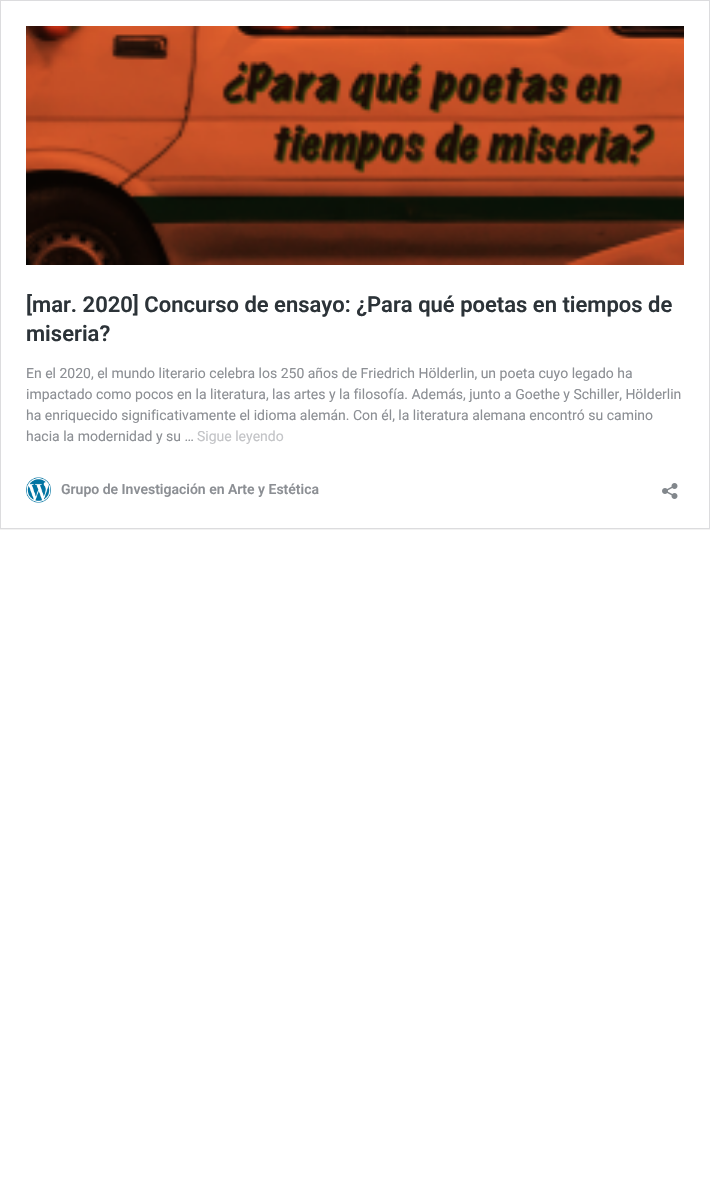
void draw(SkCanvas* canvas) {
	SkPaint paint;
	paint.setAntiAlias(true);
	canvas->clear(0xffffffff);
	canvas->save();
	canvas->clipRect(SkRect::MakeXYWH(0, 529, 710, 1));
	paint.setColor(0x0d000000);
	paint.setMaskFilter(SkMaskFilter::MakeBlur(kNormal_SkBlurStyle, 0.5));
	canvas->drawRect(SkRect::MakeXYWH(0, 1, 710, 529), paint);
	paint.setMaskFilter(nullptr);
	canvas->restore();
	paint.setStroke(true);
	paint.setStrokeWidth(1);
	paint.setColor(0xffdcdcde);
	canvas->drawRect(SkRect::MakeXYWH(0.5, 0.5, 709, 528), paint);
	canvas->drawImageRect(SkImages::DeferredFromEncodedData(SkData::MakeFromFileName("img1.png")), SkRect::MakeXYWH(26, 26, 658, 239), SkSamplingOptions());
	SkFont f1(fontMgr->matchFamilyStyle("Roboto", SkFontStyle(600, SkFontStyle::kNormal_Width, SkFontStyle::kUpright_Slant)), 22);
	f1.setSubpixel(true);
	paint.setStroke(false);
	paint.setColor(0xff2c3338);
	canvas->drawString("[mar. 2020] Concurso de ensayo: ¿Para qué poetas en tiempos de", 26, 312, f1, paint);
	canvas->drawString("miseria?", 26, 341, f1, paint);
	SkFont f2(fontMgr->matchFamilyStyle("Roboto", SkFontStyle::Normal()), 14);
	f2.setSubpixel(true);
	paint.setColor(0xff8c8f94);
	canvas->drawString("En el 2020, el mundo literario celebra los 250 años de Friedrich Hölderlin, un poeta cuyo legado ha", 26, 378, f2, paint);
	canvas->drawString("impactado como pocos en la literatura, las artes y la filosofía. Además, junto a Goethe y Schiller, Hölderlin", 26, 399, f2, paint);
	canvas->drawString("ha enriquecido significativamente el idioma alemán. Con él, la literatura alemana encontró su camino", 26, 420, f2, paint);
	canvas->drawString("hacia la modernidad y su …", 26, 441, f2, paint);
	paint.setColor(0xffc3c4c7);
	canvas->drawString("Sigue leyendo", 197, 441, f2, paint);
	canvas->drawImageRect(SkImages::DeferredFromEncodedData(SkData::MakeFromFileName("img2.png")), SkRect::MakeXYWH(26, 477, 25, 26), SkSamplingOptions());
	SkFont f3(fontMgr->matchFamilyStyle("Roboto", SkFontStyle(600, SkFontStyle::kNormal_Width, SkFontStyle::kUpright_Slant)), 14);
	f3.setSubpixel(true);
	paint.setColor(0xff8c8f94);
	canvas->drawString("Grupo de Investigación en Arte y Estética", 61, 494, f3, paint);
	canvas->drawImageRect(SkImages::DeferredFromEncodedData(SkData::MakeFromFileName("img3.png")), SkRect::MakeXYWH(662, 483, 16, 16), SkSamplingOptions());
}
